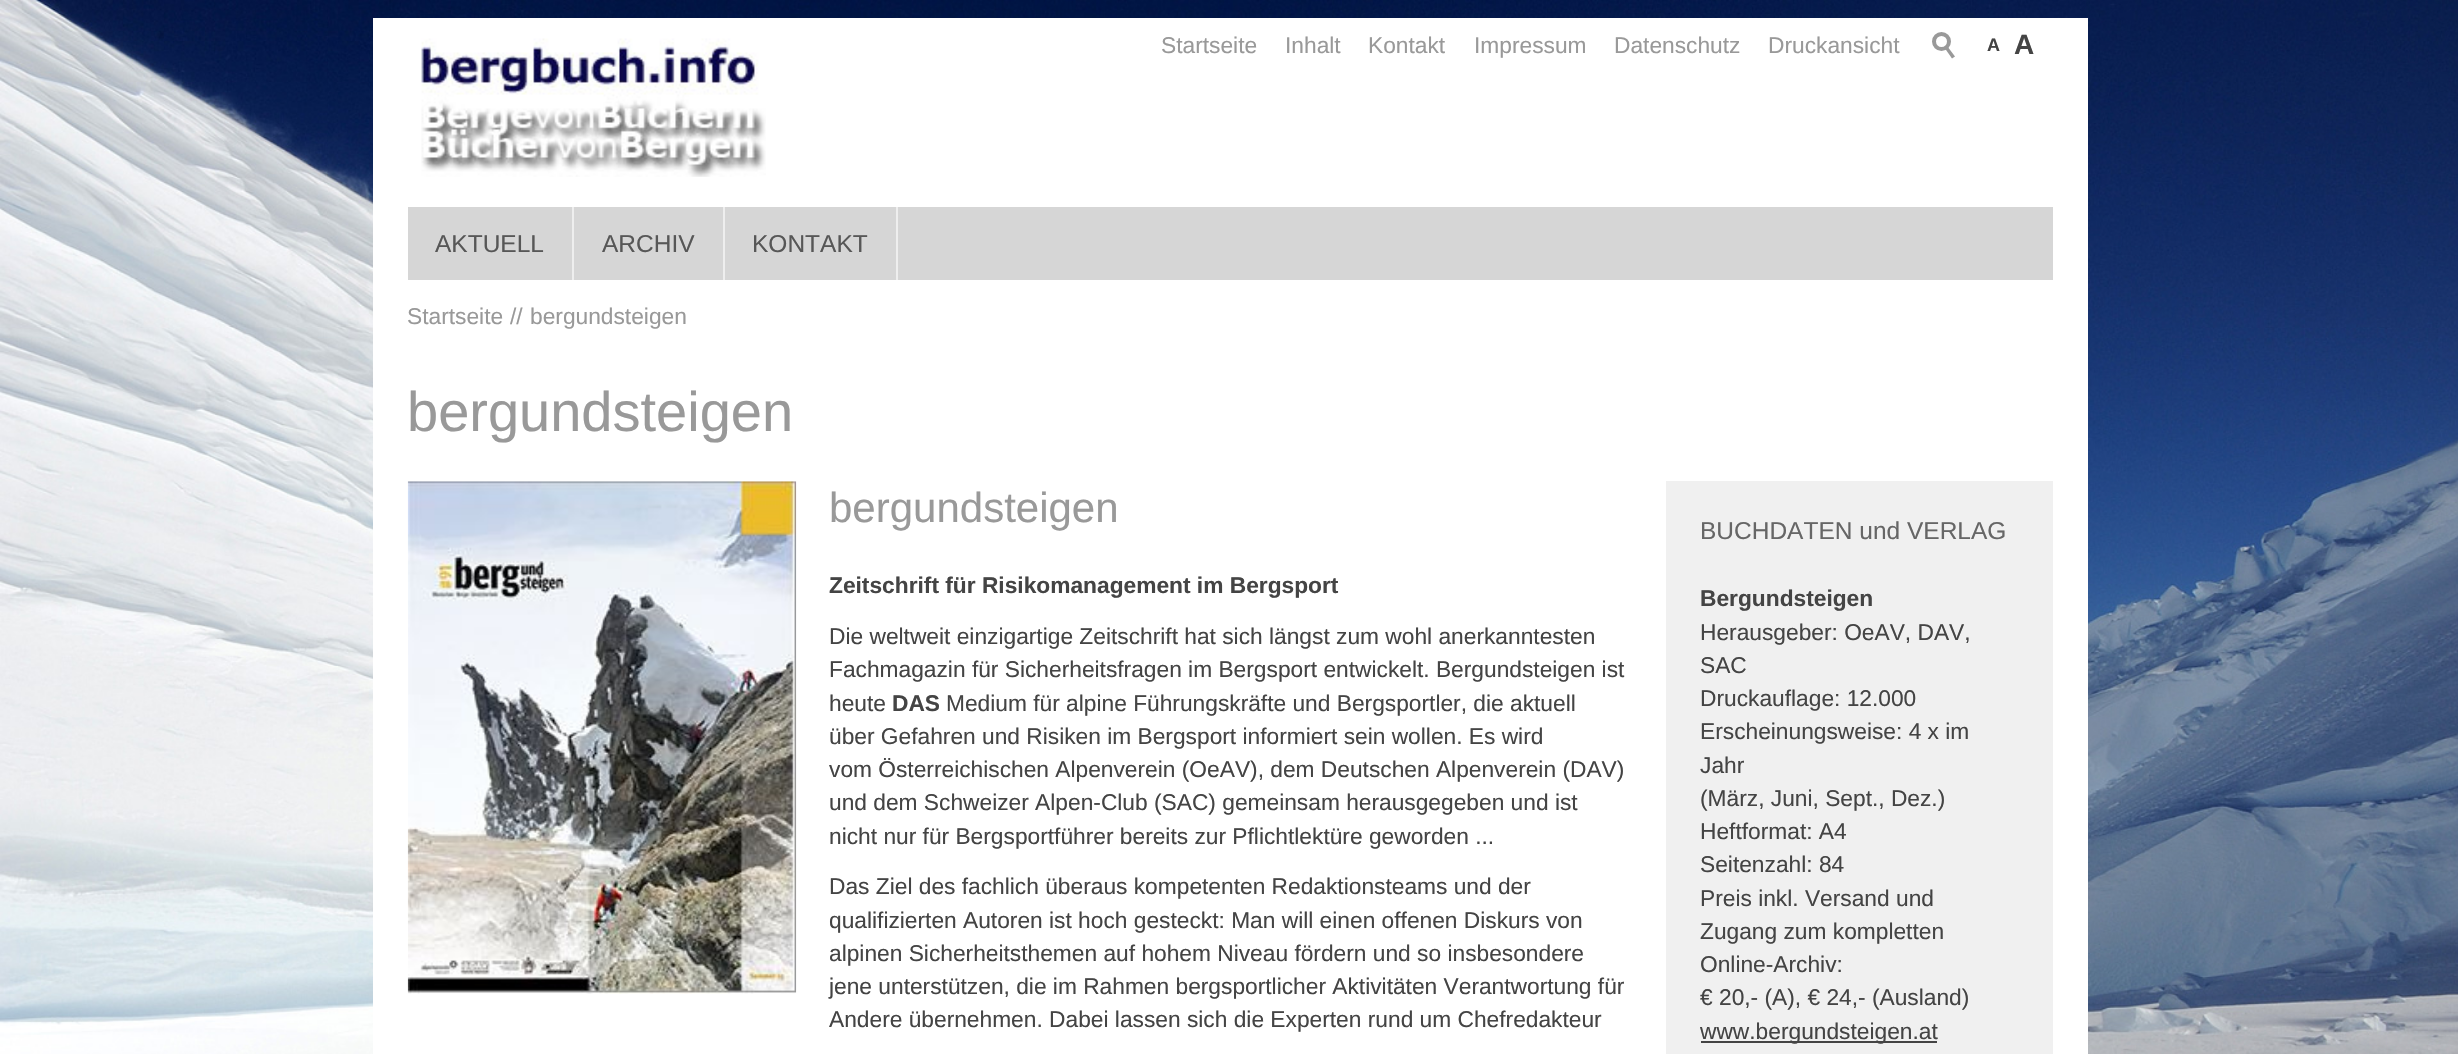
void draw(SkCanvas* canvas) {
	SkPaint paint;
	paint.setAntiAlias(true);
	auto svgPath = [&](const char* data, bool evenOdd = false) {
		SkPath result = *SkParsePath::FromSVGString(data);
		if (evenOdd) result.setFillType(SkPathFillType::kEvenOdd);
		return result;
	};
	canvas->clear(0xffffffff);
	canvas->drawImageRect(SkImages::DeferredFromEncodedData(SkData::MakeFromFileName("img1.png")), SkRect::MakeXYWH(0, 0, 2458, 1054), SkSamplingOptions());
	paint.setColor(0xffffffff);
	canvas->drawRect(SkRect::MakeXYWH(373, 18, 1715, 1036), paint);
	canvas->drawImageRect(SkImages::DeferredFromEncodedData(SkData::MakeFromFileName("img2.png")), SkRect::MakeXYWH(421, 38, 345, 139), SkSamplingOptions());
	SkFont f1(fontMgr->matchFamilyStyle("Liberation Sans", SkFontStyle::Normal()), 22.75);
	f1.setSubpixel(true);
	paint.setColor(0xff999999);
	canvas->drawString("Startseite", 1161, 53, f1, paint);
	canvas->drawString("Inhalt", 1285, 53, f1, paint);
	canvas->drawString("Kontakt", 1368, 53, f1, paint);
	canvas->drawString("Impressum", 1474, 53, f1, paint);
	canvas->drawString("Datenschutz", 1614, 53, f1, paint);
	canvas->drawString("Druckansicht", 1768, 53, f1, paint);
	paint.setStroke(true);
	paint.setStrokeWidth(4);
	canvas->drawCircle(1941.5, 41.5, 7.5, paint);
	paint.setStroke(false);
	canvas->drawPath(svgPath("M1947.5 46.5L1955 56.5L1952 58.5L1945 48.5Z"), paint);
	SkFont f2(fontMgr->matchFamilyStyle("Liberation Sans", SkFontStyle::Bold()), 18);
	f2.setSubpixel(true);
	paint.setColor(0xff444444);
	canvas->drawString("A", 1987, 51, f2, paint);
	SkFont f3(fontMgr->matchFamilyStyle("Liberation Sans", SkFontStyle::Bold()), 28);
	f3.setSubpixel(true);
	canvas->drawString("A", 2014, 54, f3, paint);
	paint.setColor(0xffd6d6d6);
	canvas->drawRect(SkRect::MakeXYWH(408, 207, 1645, 73), paint);
	paint.setColor(0xffeeeeee);
	canvas->drawRect(SkRect::MakeXYWH(572, 207, 2, 73), paint);
	SkFont f4(fontMgr->matchFamilyStyle("Liberation Sans", SkFontStyle::Normal()), 24.5);
	f4.setSubpixel(true);
	paint.setColor(0xff575757);
	canvas->drawString("AKTUELL", 435, 252, f4, paint);
	paint.setColor(0xffeeeeee);
	canvas->drawRect(SkRect::MakeXYWH(723, 207, 2, 73), paint);
	paint.setColor(0xff575757);
	canvas->drawString("ARCHIV", 602, 252, f4, paint);
	paint.setColor(0xffeeeeee);
	canvas->drawRect(SkRect::MakeXYWH(896, 207, 2, 73), paint);
	paint.setColor(0xff575757);
	canvas->drawString("KONTAKT", 752, 252, f4, paint);
	paint.setColor(0xff999999);
	canvas->drawString("Startseite", 407, 324, f1, paint);
	canvas->drawString("//", 510, 324, f1, paint);
	canvas->drawString("bergundsteigen", 530, 324, f1, paint);
	SkFont f5(fontMgr->matchFamilyStyle("Liberation Sans", SkFontStyle::Normal()), 56);
	f5.setSubpixel(true);
	canvas->drawString("bergundsteigen", 407, 431, f5, paint);
	canvas->drawImageRect(SkImages::DeferredFromEncodedData(SkData::MakeFromFileName("img3.png")), SkRect::MakeXYWH(407, 481, 390, 513), SkSamplingOptions());
	SkFont f6(fontMgr->matchFamilyStyle("Liberation Sans", SkFontStyle::Normal()), 42);
	f6.setSubpixel(true);
	canvas->drawString("bergundsteigen", 829, 522, f6, paint);
	SkFont f7(fontMgr->matchFamilyStyle("Liberation Sans", SkFontStyle::Bold()), 22.75);
	f7.setSubpixel(true);
	paint.setColor(0xff444444);
	canvas->drawString("Zeitschrift für Risikomanagement im Bergsport", 829, 593, f7, paint);
	canvas->drawString("Die weltweit einzigartige Zeitschrift hat sich längst zum wohl anerkanntesten", 829, 644, f1, paint);
	canvas->drawString("Fachmagazin für Sicherheitsfragen im Bergsport entwickelt. Bergundsteigen ist", 829, 677, f1, paint);
	canvas->drawString("heute", 829, 711, f1, paint);
	canvas->drawString("DAS", 892, 711, f7, paint);
	canvas->drawString("Medium für alpine Führungskräfte und Bergsportler, die aktuell", 946, 711, f1, paint);
	canvas->drawString("über Gefahren und Risiken im Bergsport informiert sein wollen. Es wird", 829, 744, f1, paint);
	canvas->drawString("vom Österreichischen Alpenverein (OeAV), dem Deutschen Alpenverein (DAV)", 829, 777, f1, paint);
	canvas->drawString("und dem Schweizer Alpen-Club (SAC) gemeinsam herausgegeben und ist", 829, 810, f1, paint);
	canvas->drawString("nicht nur für Bergsportführer bereits zur Pflichtlektüre geworden ...", 829, 844, f1, paint);
	canvas->drawString("Das Ziel des fachlich überaus kompetenten Redaktionsteams und der", 829, 894, f1, paint);
	canvas->drawString("qualifizierten Autoren ist hoch gesteckt: Man will einen offenen Diskurs von", 829, 928, f1, paint);
	canvas->drawString("alpinen Sicherheitsthemen auf hohem Niveau fördern und so insbesondere", 829, 961, f1, paint);
	canvas->drawString("jene unterstützen, die im Rahmen bergsportlicher Aktivitäten Verantwortung für", 829, 994, f1, paint);
	canvas->drawString("Andere übernehmen. Dabei lassen sich die Experten rund um Chefredakteur", 829, 1027, f1, paint);
	paint.setColor(0xfff0f0f0);
	canvas->drawRect(SkRect::MakeXYWH(1666, 481, 387, 573), paint);
	paint.setColor(0xff666666);
	canvas->drawString("BUCHDATEN und VERLAG", 1700, 539, f4, paint);
	paint.setColor(0xff444444);
	canvas->drawString("Bergundsteigen", 1700, 606, f7, paint);
	canvas->drawString("Herausgeber: OeAV, DAV,", 1700, 640, f1, paint);
	canvas->drawString("SAC", 1700, 673, f1, paint);
	canvas->drawString("Druckauflage: 12.000", 1700, 706, f1, paint);
	canvas->drawString("Erscheinungsweise: 4 x im", 1700, 739, f1, paint);
	canvas->drawString("Jahr", 1700, 773, f1, paint);
	canvas->drawString("(März, Juni, Sept., Dez.)", 1700, 806, f1, paint);
	canvas->drawString("Heftformat: A4", 1700, 839, f1, paint);
	canvas->drawString("Seitenzahl: 84", 1700, 872, f1, paint);
	canvas->drawString("Preis inkl. Versand und", 1700, 906, f1, paint);
	canvas->drawString("Zugang zum kompletten", 1700, 939, f1, paint);
	canvas->drawString("Online-Archiv:", 1700, 972, f1, paint);
	canvas->drawString("€ 20,- (A), € 24,- (Ausland)", 1700, 1005, f1, paint);
	canvas->drawRect(SkRect::MakeXYWH(1701, 1041, 236, 2), paint);
	canvas->drawString("www.bergundsteigen.at", 1700, 1039, f1, paint);
}
